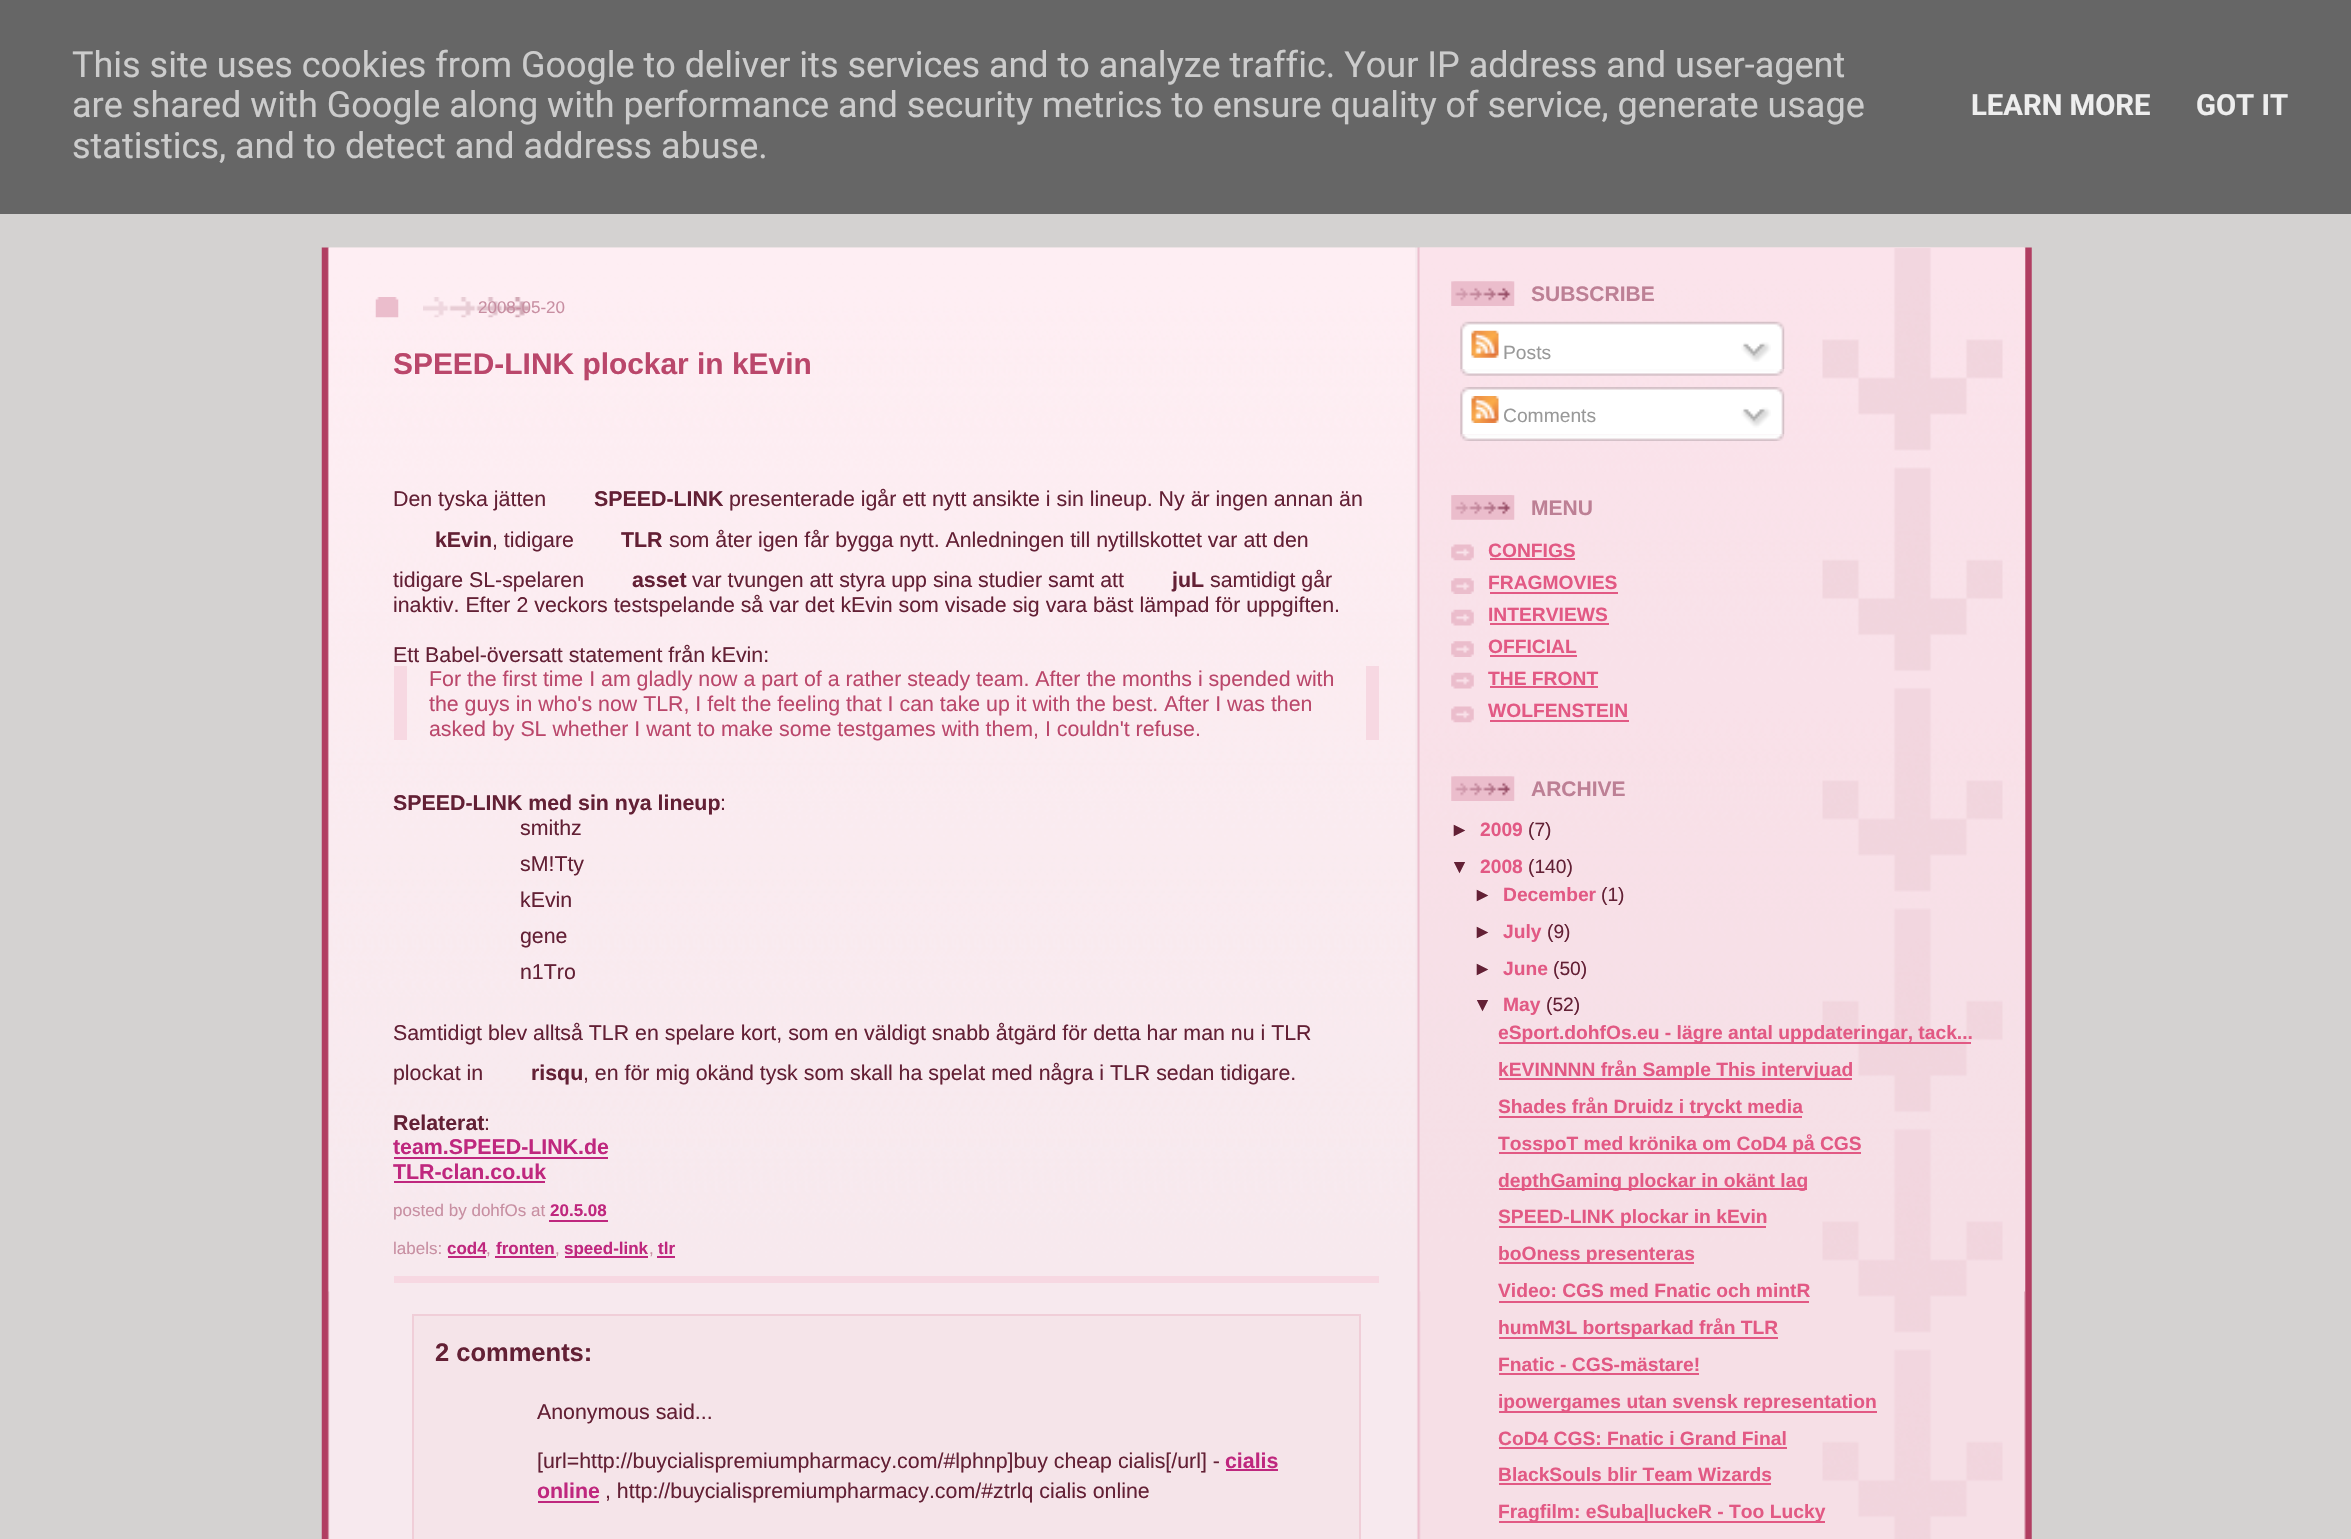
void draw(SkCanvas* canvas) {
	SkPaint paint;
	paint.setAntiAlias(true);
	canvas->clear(0xffd4d2d1);
	paint.setColor(0xff666666);
	canvas->drawRect(SkRect::MakeXYWH(0, 0, 2351, 214), paint);
	SkFont f1(fontMgr->matchFamilyStyle("Roboto", SkFontStyle::Normal()), 36);
	f1.setSubpixel(true);
	paint.setColor(0xffcccccc);
	canvas->drawString("This site uses cookies from Google to deliver its services and to analyze traffic. Your IP address and user-agent", 72, 77, f1, paint);
	canvas->drawString("are shared with Google along with performance and security metrics to ensure quality of service, generate usage", 72, 117, f1, paint);
	canvas->drawString("statistics, and to detect and address abuse.", 72, 158, f1, paint);
	SkFont f2(fontMgr->matchFamilyStyle("Roboto", SkFontStyle::Bold()), 29.25);
	f2.setSubpixel(true);
	paint.setColor(0xffeeeeee);
	canvas->drawString("LEARN MORE", 1971, 115, f2, paint);
	canvas->drawString("GOT IT", 2196, 115, f2, paint);
	canvas->drawImageRect(SkImages::DeferredFromEncodedData(SkData::MakeFromFileName("img1.png")), SkRect::MakeXYWH(321, 247, 1711, 1292), SkSamplingOptions());
	canvas->drawImageRect(SkImages::DeferredFromEncodedData(SkData::MakeFromFileName("img2.png")), SkRect::MakeXYWH(328, 247, 1087, 1045), SkSamplingOptions());
	canvas->drawImageRect(SkImages::DeferredFromEncodedData(SkData::MakeFromFileName("img3.png")), SkRect::MakeXYWH(375, 297, 24, 21), SkSamplingOptions());
	canvas->drawImageRect(SkImages::DeferredFromEncodedData(SkData::MakeFromFileName("img4.png")), SkRect::MakeXYWH(423, 297, 106, 21), SkSamplingOptions());
	SkFont f3(fontMgr->matchFamilyStyle("Liberation Sans", SkFontStyle::Normal()), 17);
	f3.setSubpixel(true);
	paint.setColor(0xffc88fa2);
	canvas->drawString("2008-05-20", 478, 313, f3, paint);
	paint.setColor(0xfff7d8e2);
	canvas->drawRect(SkRect::MakeXYWH(394, 1276, 985, 7), paint);
	SkFont f4(fontMgr->matchFamilyStyle("Liberation Sans", SkFontStyle::Bold()), 29.9);
	f4.setSubpixel(true);
	paint.setColor(0xffba476b);
	canvas->drawString("SPEED-LINK plockar in kEvin", 393, 374, f4, paint);
	SkFont f5(fontMgr->matchFamilyStyle("Liberation Sans", SkFontStyle::Normal()), 21.35);
	f5.setSubpixel(true);
	paint.setColor(0xff632035);
	canvas->drawString("Den tyska jätten", 393, 506, f5, paint);
	SkFont f6(fontMgr->matchFamilyStyle("Liberation Sans", SkFontStyle::Bold()), 21.35);
	f6.setSubpixel(true);
	canvas->drawString("SPEED-LINK", 594, 506, f6, paint);
	canvas->drawString("presenterade igår ett nytt ansikte i sin lineup. Ny är ingen annan än", 729, 506, f5, paint);
	canvas->drawString("kEvin", 435, 547, f6, paint);
	canvas->drawString(", tidigare", 492, 547, f5, paint);
	canvas->drawString("TLR", 621, 547, f6, paint);
	canvas->drawString("som åter igen får bygga nytt. Anledningen till nytillskottet var att den", 669, 547, f5, paint);
	canvas->drawString("tidigare SL-spelaren", 393, 587, f5, paint);
	canvas->drawString("asset", 632, 587, f6, paint);
	canvas->drawString("var tvungen att styra upp sina studier samt att", 692, 587, f5, paint);
	canvas->drawString("juL", 1172, 587, f6, paint);
	canvas->drawString("samtidigt går", 1210, 587, f5, paint);
	canvas->drawString("inaktiv. Efter 2 veckors testspelande så var det kEvin som visade sig vara bäst lämpad för uppgiften.", 393, 612, f5, paint);
	canvas->drawString("Ett Babel-översatt statement från kEvin:", 393, 662, f5, paint);
	paint.setColor(0xfff7d8e2);
	canvas->drawRect(SkRect::MakeXYWH(1366, 666, 13, 74), paint);
	canvas->drawRect(SkRect::MakeXYWH(394, 666, 13, 74), paint);
	paint.setColor(0xffba476b);
	canvas->drawString("For the first time I am gladly now a part of a rather steady team. After the months i spended with", 429, 686, f5, paint);
	canvas->drawString("the guys in who's now TLR, I felt the feeling that I can take up it with the best. After I was then", 429, 711, f5, paint);
	canvas->drawString("asked by SL whether I want to make some testgames with them, I couldn't refuse.", 429, 736, f5, paint);
	paint.setColor(0xff632035);
	canvas->drawString("SPEED-LINK med sin nya lineup", 393, 810, f6, paint);
	canvas->drawString(":", 720, 810, f5, paint);
	canvas->drawString("smithz", 520, 835, f5, paint);
	canvas->drawString("sM!Tty", 520, 871, f5, paint);
	canvas->drawString("kEvin", 520, 907, f5, paint);
	canvas->drawString("gene", 520, 943, f5, paint);
	canvas->drawString("n1Tro", 520, 979, f5, paint);
	canvas->drawString("Samtidigt blev alltså TLR en spelare kort, som en väldigt snabb åtgärd för detta har man nu i TLR", 393, 1040, f5, paint);
	canvas->drawString("plockat in", 393, 1080, f5, paint);
	canvas->drawString("risqu", 531, 1080, f6, paint);
	canvas->drawString(", en för mig okänd tysk som skall ha spelat med några i TLR sedan tidigare.", 583, 1080, f5, paint);
	canvas->drawString("Relaterat", 393, 1130, f6, paint);
	canvas->drawString(":", 484, 1130, f5, paint);
	paint.setColor(0xffbf277e);
	canvas->drawString("team.SPEED-LINK.de", 393, 1154, f6, paint);
	canvas->drawRect(SkRect::MakeXYWH(394, 1157, 214, 2), paint);
	canvas->drawString("TLR-clan.co.uk", 393, 1179, f6, paint);
	canvas->drawRect(SkRect::MakeXYWH(394, 1181, 151, 2), paint);
	paint.setColor(0xffc88fa2);
	canvas->drawString("posted by dohfOs at", 393, 1216, f3, paint);
	SkFont f7(fontMgr->matchFamilyStyle("Liberation Sans", SkFontStyle::Bold()), 17);
	f7.setSubpixel(true);
	paint.setColor(0xffbf277e);
	canvas->drawString("20.5.08", 550, 1216, f7, paint);
	canvas->drawRect(SkRect::MakeXYWH(549, 1220, 59, 2), paint);
	paint.setColor(0xffc88fa2);
	canvas->drawString("labels:", 393, 1254, f3, paint);
	paint.setColor(0xffbf277e);
	canvas->drawString("cod4", 447, 1254, f7, paint);
	paint.setColor(0xffc88fa2);
	canvas->drawString(",", 486, 1254, f3, paint);
	paint.setColor(0xffbf277e);
	canvas->drawRect(SkRect::MakeXYWH(448, 1256, 38, 2), paint);
	canvas->drawString("fronten", 496, 1254, f7, paint);
	paint.setColor(0xffc88fa2);
	canvas->drawString(",", 555, 1254, f3, paint);
	paint.setColor(0xffbf277e);
	canvas->drawRect(SkRect::MakeXYWH(495, 1256, 61, 2), paint);
	canvas->drawRect(SkRect::MakeXYWH(565, 1256, 83, 2), paint);
	canvas->drawString("speed-link", 564, 1254, f7, paint);
	paint.setColor(0xffc88fa2);
	canvas->drawString(",", 649, 1254, f3, paint);
	paint.setColor(0xffbf277e);
	canvas->drawRect(SkRect::MakeXYWH(657, 1256, 18, 2), paint);
	canvas->drawString("tlr", 658, 1254, f7, paint);
	paint.setColor(0xfff5e4e9);
	canvas->drawRect(SkRect::MakeXYWH(413, 1315, 947, 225), paint);
	paint.setStroke(true);
	paint.setStrokeWidth(2);
	paint.setColor(0xfff0ced8);
	canvas->drawRect(SkRect::MakeXYWH(413, 1315, 947, 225), paint);
	SkFont f8(fontMgr->matchFamilyStyle("Liberation Sans", SkFontStyle::Bold()), 25.5);
	f8.setSubpixel(true);
	paint.setStroke(false);
	paint.setColor(0xff632035);
	canvas->drawString("2 comments:", 435, 1361, f8, paint);
	canvas->drawString("Anonymous said...", 537, 1419, f5, paint);
	canvas->drawString("[url=http://buycialispremiumpharmacy.com/#lphnp]buy cheap cialis[/url] -", 537, 1468, f5, paint);
	paint.setColor(0xffbf277e);
	canvas->drawString("cialis", 1225, 1468, f6, paint);
	canvas->drawRect(SkRect::MakeXYWH(1226, 1469, 52, 2), paint);
	canvas->drawString("online", 537, 1498, f6, paint);
	canvas->drawRect(SkRect::MakeXYWH(538, 1501, 61, 2), paint);
	paint.setColor(0xff632035);
	canvas->drawString(", http://buycialispremiumpharmacy.com/#ztrlq cialis online", 605, 1498, f5, paint);
	canvas->drawImageRect(SkImages::DeferredFromEncodedData(SkData::MakeFromFileName("img5.png")), SkRect::MakeXYWH(1419, 247, 606, 1045), SkSamplingOptions());
	canvas->drawImageRect(SkImages::DeferredFromEncodedData(SkData::MakeFromFileName("img6.png")), SkRect::MakeXYWH(1822, 248, 181, 1291), SkSamplingOptions());
	canvas->drawImageRect(SkImages::DeferredFromEncodedData(SkData::MakeFromFileName("img7.png")), SkRect::MakeXYWH(1451, 281, 64, 25), SkSamplingOptions());
	SkFont f9(fontMgr->matchFamilyStyle("Liberation Sans", SkFontStyle::Bold()), 21);
	f9.setSubpixel(true);
	paint.setColor(0xffbd8095);
	canvas->drawString("SUBSCRIBE", 1531, 301, f9, paint);
	canvas->drawImageRect(SkImages::DeferredFromEncodedData(SkData::MakeFromFileName("img8.png")), SkRect::MakeXYWH(1460, 321, 325, 48), SkSamplingOptions());
	canvas->drawImageRect(SkImages::DeferredFromEncodedData(SkData::MakeFromFileName("img9.png")), SkRect::MakeXYWH(1471, 330, 28, 28), SkSamplingOptions());
	SkFont f10(fontMgr->matchFamilyStyle("Liberation Sans", SkFontStyle::Normal()), 19.25);
	f10.setSubpixel(true);
	paint.setColor(0xff999999);
	canvas->drawString("Posts", 1503, 359, f10, paint);
	canvas->drawImageRect(SkImages::DeferredFromEncodedData(SkData::MakeFromFileName("img10.png")), SkRect::MakeXYWH(1741, 342, 30, 20), SkSamplingOptions());
	canvas->drawImageRect(SkImages::DeferredFromEncodedData(SkData::MakeFromFileName("img11.png")), SkRect::MakeXYWH(1460, 369, 324, 7), SkSamplingOptions());
	canvas->drawImageRect(SkImages::DeferredFromEncodedData(SkData::MakeFromFileName("img12.png")), SkRect::MakeXYWH(1460, 387, 325, 48), SkSamplingOptions());
	canvas->drawImageRect(SkImages::DeferredFromEncodedData(SkData::MakeFromFileName("img13.png")), SkRect::MakeXYWH(1471, 396, 28, 27), SkSamplingOptions());
	canvas->drawString("Comments", 1503, 422, f10, paint);
	canvas->drawImageRect(SkImages::DeferredFromEncodedData(SkData::MakeFromFileName("img14.png")), SkRect::MakeXYWH(1741, 407, 30, 21), SkSamplingOptions());
	canvas->drawImageRect(SkImages::DeferredFromEncodedData(SkData::MakeFromFileName("img15.png")), SkRect::MakeXYWH(1460, 434, 324, 7), SkSamplingOptions());
	canvas->drawImageRect(SkImages::DeferredFromEncodedData(SkData::MakeFromFileName("img16.png")), SkRect::MakeXYWH(1451, 495, 64, 25), SkSamplingOptions());
	paint.setColor(0xffbd8095);
	canvas->drawString("MENU", 1531, 515, f9, paint);
	canvas->drawImageRect(SkImages::DeferredFromEncodedData(SkData::MakeFromFileName("img17.png")), SkRect::MakeXYWH(1451, 544, 23, 17), SkSamplingOptions());
	SkFont f11(fontMgr->matchFamilyStyle("Liberation Sans", SkFontStyle::Bold()), 19.25);
	f11.setSubpixel(true);
	paint.setColor(0xffe25984);
	canvas->drawString("CONFIGS", 1488, 557, f11, paint);
	canvas->drawRect(SkRect::MakeXYWH(1490, 558, 85, 2), paint);
	canvas->drawImageRect(SkImages::DeferredFromEncodedData(SkData::MakeFromFileName("img18.png")), SkRect::MakeXYWH(1451, 578, 23, 16), SkSamplingOptions());
	canvas->drawString("FRAGMOVIES", 1488, 589, f11, paint);
	canvas->drawRect(SkRect::MakeXYWH(1490, 592, 128, 2), paint);
	canvas->drawImageRect(SkImages::DeferredFromEncodedData(SkData::MakeFromFileName("img19.png")), SkRect::MakeXYWH(1451, 609, 23, 17), SkSamplingOptions());
	canvas->drawString("INTERVIEWS", 1488, 621, f11, paint);
	canvas->drawRect(SkRect::MakeXYWH(1490, 623, 119, 2), paint);
	canvas->drawImageRect(SkImages::DeferredFromEncodedData(SkData::MakeFromFileName("img20.png")), SkRect::MakeXYWH(1451, 641, 23, 16), SkSamplingOptions());
	canvas->drawString("OFFICIAL", 1488, 653, f11, paint);
	canvas->drawRect(SkRect::MakeXYWH(1490, 655, 87, 2), paint);
	canvas->drawImageRect(SkImages::DeferredFromEncodedData(SkData::MakeFromFileName("img21.png")), SkRect::MakeXYWH(1451, 672, 23, 17), SkSamplingOptions());
	canvas->drawString("THE FRONT", 1488, 685, f11, paint);
	canvas->drawRect(SkRect::MakeXYWH(1490, 686, 108, 2), paint);
	canvas->drawImageRect(SkImages::DeferredFromEncodedData(SkData::MakeFromFileName("img22.png")), SkRect::MakeXYWH(1451, 706, 23, 17), SkSamplingOptions());
	canvas->drawString("WOLFENSTEIN", 1488, 717, f11, paint);
	canvas->drawRect(SkRect::MakeXYWH(1490, 720, 139, 2), paint);
	canvas->drawImageRect(SkImages::DeferredFromEncodedData(SkData::MakeFromFileName("img23.png")), SkRect::MakeXYWH(1451, 776, 64, 25), SkSamplingOptions());
	paint.setColor(0xffbd8095);
	canvas->drawString("ARCHIVE", 1531, 796, f9, paint);
	paint.setColor(0xff632035);
	canvas->drawString("►", 1450, 836, f11, paint);
	paint.setColor(0xffe25984);
	canvas->drawString("2009", 1480, 836, f11, paint);
	paint.setColor(0xff632035);
	canvas->drawString("(7)", 1528, 836, f10, paint);
	canvas->drawString("▼", 1450, 873, f11, paint);
	paint.setColor(0xffe25984);
	canvas->drawString("2008", 1480, 873, f11, paint);
	paint.setColor(0xff632035);
	canvas->drawString("(140)", 1528, 873, f10, paint);
	canvas->drawString("►", 1473, 901, f11, paint);
	paint.setColor(0xffe25984);
	canvas->drawString("December", 1503, 901, f11, paint);
	paint.setColor(0xff632035);
	canvas->drawString("(1)", 1601, 901, f10, paint);
	canvas->drawString("►", 1473, 938, f11, paint);
	paint.setColor(0xffe25984);
	canvas->drawString("July", 1503, 938, f11, paint);
	paint.setColor(0xff632035);
	canvas->drawString("(9)", 1547, 938, f10, paint);
	canvas->drawString("►", 1473, 975, f11, paint);
	paint.setColor(0xffe25984);
	canvas->drawString("June", 1503, 975, f11, paint);
	paint.setColor(0xff632035);
	canvas->drawString("(50)", 1553, 975, f10, paint);
	canvas->drawString("▼", 1473, 1011, f11, paint);
	paint.setColor(0xffe25984);
	canvas->drawString("May", 1503, 1011, f11, paint);
	paint.setColor(0xff632035);
	canvas->drawString("(52)", 1546, 1011, f10, paint);
	paint.setColor(0xffe25984);
	canvas->drawRect(SkRect::MakeXYWH(1499, 1042, 472, 2), paint);
	canvas->drawString("eSport.dohfOs.eu - lägre antal uppdateringar, tack...", 1498, 1039, f11, paint);
	canvas->drawRect(SkRect::MakeXYWH(1499, 1078, 353, 2), paint);
	canvas->drawString("kEVINNNN från Sample This intervjuad", 1498, 1076, f11, paint);
	canvas->drawRect(SkRect::MakeXYWH(1499, 1116, 303, 2), paint);
	canvas->drawString("Shades från Druidz i tryckt media", 1498, 1113, f11, paint);
	canvas->drawRect(SkRect::MakeXYWH(1499, 1152, 362, 2), paint);
	canvas->drawString("TosspoT med krönika om CoD4 på CGS", 1498, 1150, f11, paint);
	canvas->drawRect(SkRect::MakeXYWH(1499, 1188, 308, 2), paint);
	canvas->drawString("depthGaming plockar in okänt lag", 1498, 1187, f11, paint);
	canvas->drawRect(SkRect::MakeXYWH(1499, 1226, 267, 2), paint);
	canvas->drawString("SPEED-LINK plockar in kEvin", 1498, 1223, f11, paint);
	canvas->drawRect(SkRect::MakeXYWH(1499, 1262, 195, 2), paint);
	canvas->drawString("boOness presenteras", 1498, 1260, f11, paint);
	canvas->drawString("Video: CGS med Fnatic och mintR", 1498, 1297, f11, paint);
	canvas->drawRect(SkRect::MakeXYWH(1499, 1301, 310, 2), paint);
	canvas->drawRect(SkRect::MakeXYWH(1499, 1337, 279, 2), paint);
	canvas->drawString("humM3L bortsparkad från TLR", 1498, 1334, f11, paint);
	canvas->drawString("Fnatic - CGS-mästare!", 1498, 1371, f11, paint);
	canvas->drawRect(SkRect::MakeXYWH(1499, 1373, 200, 2), paint);
	canvas->drawRect(SkRect::MakeXYWH(1499, 1411, 378, 2), paint);
	canvas->drawString("ipowergames utan svensk representation", 1498, 1408, f11, paint);
	canvas->drawString("CoD4 CGS: Fnatic i Grand Final", 1498, 1445, f11, paint);
	canvas->drawRect(SkRect::MakeXYWH(1499, 1447, 288, 2), paint);
	canvas->drawString("BlackSouls blir Team Wizards", 1498, 1481, f11, paint);
	canvas->drawRect(SkRect::MakeXYWH(1499, 1483, 272, 2), paint);
	canvas->drawRect(SkRect::MakeXYWH(1499, 1521, 326, 2), paint);
	canvas->drawString("Fragfilm: eSuba|luckeR - Too Lucky", 1498, 1518, f11, paint);
}
